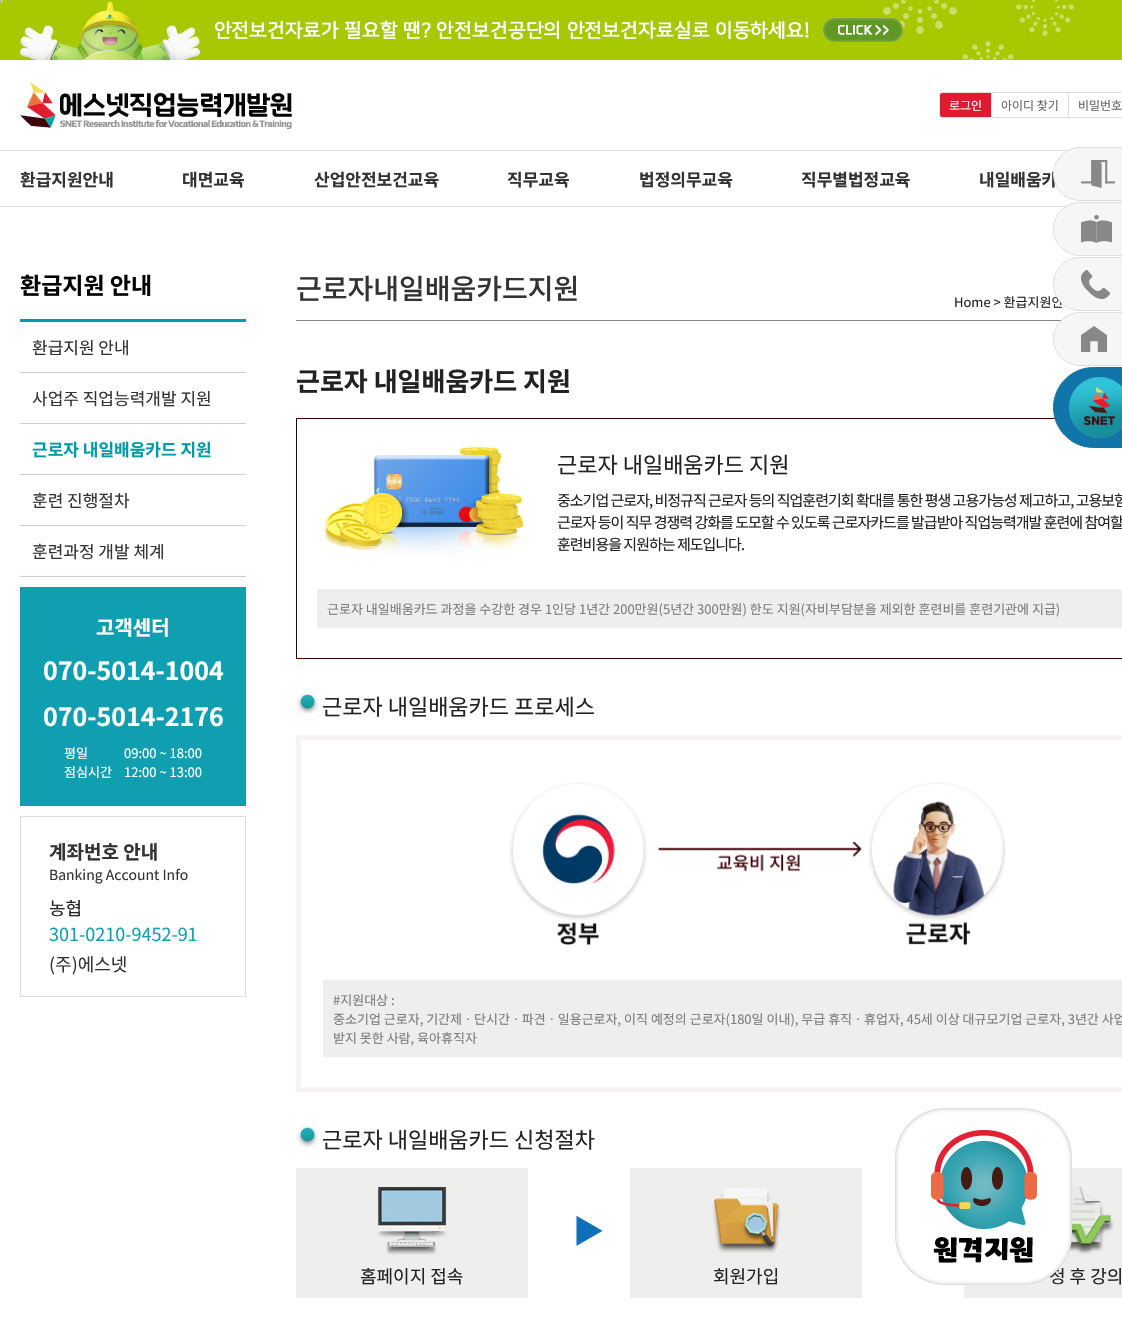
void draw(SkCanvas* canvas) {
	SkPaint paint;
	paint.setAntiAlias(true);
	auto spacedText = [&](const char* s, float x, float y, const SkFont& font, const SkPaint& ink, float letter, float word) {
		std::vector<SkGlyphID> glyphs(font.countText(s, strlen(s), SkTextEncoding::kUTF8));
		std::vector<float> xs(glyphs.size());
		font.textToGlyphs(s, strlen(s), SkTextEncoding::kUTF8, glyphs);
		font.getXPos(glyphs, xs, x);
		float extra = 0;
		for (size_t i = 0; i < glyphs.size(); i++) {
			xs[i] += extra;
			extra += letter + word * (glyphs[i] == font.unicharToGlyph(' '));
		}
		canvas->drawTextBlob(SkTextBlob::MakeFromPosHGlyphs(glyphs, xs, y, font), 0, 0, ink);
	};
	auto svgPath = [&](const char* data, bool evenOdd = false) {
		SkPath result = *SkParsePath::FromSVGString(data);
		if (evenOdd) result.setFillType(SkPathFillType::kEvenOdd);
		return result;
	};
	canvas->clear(0xffffffff);
	paint.setColor(0xffa8c800);
	canvas->drawRect(SkRect::MakeXYWH(0, 0, 1122, 60), paint);
	canvas->drawImageRect(SkImages::DeferredFromEncodedData(SkData::MakeFromFileName("img1.png")), SkRect::MakeXYWH(20, 0, 1054, 60), SkSamplingOptions());
	paint.setColor(0xffeeeeee);
	canvas->drawRect(SkRect::MakeXYWH(1, 0, 1, 2), paint);
	canvas->drawRect(SkRect::MakeXYWH(0, 1, 2, 1), paint);
	paint.setColor(0xff9f9f9f);
	canvas->drawRect(SkRect::MakeXYWH(0, 0, 1, 2), paint);
	paint.setColor(0xffdddddd);
	canvas->drawRect(SkRect::MakeXYWH(0, 150, 1068, 1), paint);
	canvas->drawImageRect(SkImages::DeferredFromEncodedData(SkData::MakeFromFileName("img2.png")), SkRect::MakeXYWH(20, 82, 272, 47), SkSamplingOptions());
	paint.setStroke(true);
	paint.setStrokeWidth(1);
	canvas->drawRoundRect(SkRect::MakeXYWH(939.5, 92.5, 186, 25), 2.5, 2.5, paint);
	paint.setStroke(false);
	paint.setColor(0xffe21a31);
	canvas->drawPath(svgPath("M942 93H991V117H942C941 117 940 116 940 115V95C940 94 941 93 942 93Z"), paint);
	SkFont f1(fontMgr->matchFamilyStyle("Noto Sans KR", SkFontStyle::Normal()), 12);
	f1.setSubpixel(true);
	paint.setColor(0xffffffff);
	canvas->drawString("로그인", 949, 110, f1, paint);
	paint.setColor(0xffdddddd);
	canvas->drawRect(SkRect::MakeXYWH(991, 93, 1, 24), paint);
	paint.setColor(0xff666666);
	canvas->drawString("아이디 찾기", 1001, 110, f1, paint);
	paint.setColor(0xffdddddd);
	canvas->drawRect(SkRect::MakeXYWH(1068, 93, 1, 24), paint);
	paint.setColor(0xff666666);
	canvas->drawString("비밀번호", 1078, 110, f1, paint);
	paint.setColor(0xffdddddd);
	canvas->drawRect(SkRect::MakeXYWH(0, 206, 1066, 1), paint);
	SkFont f2(fontMgr->matchFamilyStyle("Noto Sans KR", SkFontStyle::Bold()), 17);
	f2.setSubpixel(true);
	paint.setColor(0xff333333);
	canvas->drawString("환급지원안내", 20, 186, f2, paint);
	canvas->drawString("대면교육", 182, 186, f2, paint);
	canvas->drawString("산업안전보건교육", 314, 186, f2, paint);
	canvas->drawString("직무교육", 507, 186, f2, paint);
	canvas->drawString("법정의무교육", 639, 186, f2, paint);
	canvas->drawString("직무별법정교육", 801, 186, f2, paint);
	canvas->drawString("내일배움카", 979, 186, f2, paint);
	paint.setColor(0xfff6f6f6);
	canvas->drawPath(svgPath("M1080 147.5H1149.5V200.5H1080C1065.5 200.5 1053.5 188.5 1053.5 174C1053.5 159.5 1065.5 147.5 1080 147.5Z"), paint);
	paint.setStroke(true);
	paint.setColor(0xffdddddd);
	canvas->drawPath(svgPath("M1080 147.5H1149.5V200.5H1080C1065.5 200.5 1053.5 188.5 1053.5 174C1053.5 159.5 1065.5 147.5 1080 147.5Z"), paint);
	canvas->drawImageRect(SkImages::DeferredFromEncodedData(SkData::MakeFromFileName("img3.png")), SkRect::MakeXYWH(1081, 160, 34, 28), SkSamplingOptions());
	paint.setStroke(false);
	paint.setColor(0xfff6f6f6);
	canvas->drawPath(svgPath("M1080 202.5H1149.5V255.5H1080C1065.5 255.5 1053.5 243.5 1053.5 229C1053.5 214.5 1065.5 202.5 1080 202.5Z"), paint);
	paint.setStroke(true);
	paint.setColor(0xffdddddd);
	canvas->drawPath(svgPath("M1080 202.5H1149.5V255.5H1080C1065.5 255.5 1053.5 243.5 1053.5 229C1053.5 214.5 1065.5 202.5 1080 202.5Z"), paint);
	canvas->drawImageRect(SkImages::DeferredFromEncodedData(SkData::MakeFromFileName("img4.png")), SkRect::MakeXYWH(1081, 215, 31, 28), SkSamplingOptions());
	SkFont f3(fontMgr->matchFamilyStyle("Noto Sans KR", SkFontStyle::Normal()), 13);
	f3.setSubpixel(true);
	paint.setStroke(false);
	paint.setColor(0xff222222);
	canvas->drawString("Home > 환급지원안", 954, 307, f3, paint);
	paint.setColor(0xfff6f6f6);
	canvas->drawPath(svgPath("M1080 257.5H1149.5V310.5H1080C1065.5 310.5 1053.5 298.5 1053.5 284C1053.5 269.5 1065.5 257.5 1080 257.5Z"), paint);
	paint.setStroke(true);
	paint.setColor(0xffdddddd);
	canvas->drawPath(svgPath("M1080 257.5H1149.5V310.5H1080C1065.5 310.5 1053.5 298.5 1053.5 284C1053.5 269.5 1065.5 257.5 1080 257.5Z"), paint);
	canvas->drawImageRect(SkImages::DeferredFromEncodedData(SkData::MakeFromFileName("img5.png")), SkRect::MakeXYWH(1081, 270, 29, 29), SkSamplingOptions());
	paint.setStroke(false);
	paint.setColor(0xff858585);
	canvas->drawRect(SkRect::MakeXYWH(296, 320, 765, 1), paint);
	paint.setColor(0xfff6f6f6);
	canvas->drawPath(svgPath("M1080 312.5H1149.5V365.5H1080C1065.5 365.5 1053.5 353.5 1053.5 339C1053.5 324.5 1065.5 312.5 1080 312.5Z"), paint);
	paint.setStroke(true);
	paint.setColor(0xffdddddd);
	canvas->drawPath(svgPath("M1080 312.5H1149.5V365.5H1080C1065.5 365.5 1053.5 353.5 1053.5 339C1053.5 324.5 1065.5 312.5 1080 312.5Z"), paint);
	canvas->drawImageRect(SkImages::DeferredFromEncodedData(SkData::MakeFromFileName("img6.png")), SkRect::MakeXYWH(1081, 326, 26, 26), SkSamplingOptions());
	paint.setColor(0xff300000);
	canvas->drawRect(SkRect::MakeXYWH(296.5, 418.5, 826, 240), paint);
	paint.setStroke(false);
	paint.setColor(0xff1175a9);
	canvas->drawPath(svgPath("M1093.5 367.5H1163.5V447.5H1093.5C1071.5 447.5 1053.5 429.5 1053.5 407.5C1053.5 385.5 1071.5 367.5 1093.5 367.5Z"), paint);
	paint.setStroke(true);
	canvas->drawPath(svgPath("M1093.5 367.5H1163.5V447.5H1093.5C1071.5 447.5 1053.5 429.5 1053.5 407.5C1053.5 385.5 1071.5 367.5 1093.5 367.5Z"), paint);
	canvas->drawImageRect(SkImages::DeferredFromEncodedData(SkData::MakeFromFileName("img7.png")), SkRect::MakeXYWH(1069, 377, 53, 61), SkSamplingOptions());
	paint.setStroke(false);
	paint.setColor(0xff009ba9);
	canvas->drawRect(SkRect::MakeXYWH(20, 319, 226, 3), paint);
	SkFont f4(fontMgr->matchFamilyStyle("Noto Sans KR", SkFontStyle::Bold()), 23);
	f4.setSubpixel(true);
	paint.setColor(0xff000000);
	canvas->drawString("환급지원 안내", 20, 294, f4, paint);
	paint.setColor(0xffcccccc);
	canvas->drawRect(SkRect::MakeXYWH(20, 372, 226, 1), paint);
	SkFont f5(fontMgr->matchFamilyStyle("Noto Sans KR", SkFontStyle::Normal()), 17);
	f5.setSubpixel(true);
	paint.setColor(0xff333333);
	canvas->drawString("환급지원 안내", 32, 354, f5, paint);
	paint.setColor(0xffcccccc);
	canvas->drawRect(SkRect::MakeXYWH(20, 423, 226, 1), paint);
	paint.setColor(0xff333333);
	canvas->drawString("사업주 직업능력개발 지원", 32, 405, f5, paint);
	paint.setColor(0xffcccccc);
	canvas->drawRect(SkRect::MakeXYWH(20, 474, 226, 1), paint);
	paint.setColor(0xff009ba9);
	canvas->drawString("근로자 내일배움카드 지원", 32, 456, f2, paint);
	paint.setColor(0xffcccccc);
	canvas->drawRect(SkRect::MakeXYWH(20, 525, 226, 1), paint);
	paint.setColor(0xff333333);
	canvas->drawString("훈련 진행절차", 32, 507, f5, paint);
	paint.setColor(0xffcccccc);
	canvas->drawRect(SkRect::MakeXYWH(20, 576, 226, 1), paint);
	paint.setColor(0xff333333);
	canvas->drawString("훈련과정 개발 체계", 32, 558, f5, paint);
	paint.setColor(0xff109fb0);
	canvas->drawRect(SkRect::MakeXYWH(20, 587, 226, 219), paint);
	SkFont f6(fontMgr->matchFamilyStyle("Noto Sans KR", SkFontStyle::Bold()), 20);
	f6.setSubpixel(true);
	paint.setColor(0xffffffff);
	canvas->drawString("고객센터", 96, 635, f6, paint);
	SkFont f7(fontMgr->matchFamilyStyle("Noto Sans KR", SkFontStyle::Bold()), 25);
	f7.setSubpixel(true);
	canvas->drawString("070-5014-1004", 43, 680, f7, paint);
	canvas->drawString("070-5014-2176", 43, 726, f7, paint);
	canvas->drawString("평일", 64, 758, f3, paint);
	canvas->drawString("09:00 ~ 18:00", 124, 758, f3, paint);
	canvas->drawString("점심시간", 64, 777, f3, paint);
	canvas->drawString("12:00 ~ 13:00", 124, 777, f3, paint);
	paint.setStroke(true);
	paint.setColor(0xffdddddd);
	canvas->drawRect(SkRect::MakeXYWH(20.5, 816.5, 225, 180), paint);
	SkFont f8(fontMgr->matchFamilyStyle("Noto Sans KR", SkFontStyle::Bold()), 19);
	f8.setSubpixel(true);
	paint.setStroke(false);
	paint.setColor(0xff333333);
	canvas->drawString("계좌번호 안내", 49, 859, f8, paint);
	SkFont f9(fontMgr->matchFamilyStyle("Noto Sans KR", SkFontStyle::Normal()), 14);
	f9.setSubpixel(true);
	canvas->drawString("Banking Account Info", 49, 880, f9, paint);
	SkFont f10(fontMgr->matchFamilyStyle("Noto Sans KR", SkFontStyle::Normal()), 18);
	f10.setSubpixel(true);
	paint.setColor(0xff222222);
	canvas->drawString("농협", 49, 915, f10, paint);
	paint.setColor(0xff109fb0);
	canvas->drawString("301-0210-9452-91", 49, 941, f10, paint);
	paint.setColor(0xff333333);
	canvas->drawString("(주)에스넷", 49, 971, f10, paint);
	SkFont f11(fontMgr->matchFamilyStyle("Noto Sans KR", SkFontStyle(500, SkFontStyle::kNormal_Width, SkFontStyle::kUpright_Slant)), 28);
	f11.setSubpixel(true);
	canvas->drawString("근로자내일배움카드지원", 296, 299, f11, paint);
	SkFont f12(fontMgr->matchFamilyStyle("Noto Sans KR", SkFontStyle::Bold()), 26);
	f12.setSubpixel(true);
	paint.setColor(0xff222222);
	canvas->drawString("근로자 내일배움카드 지원", 296, 391, f12, paint);
	canvas->drawImageRect(SkImages::DeferredFromEncodedData(SkData::MakeFromFileName("img8.png")), SkRect::MakeXYWH(324, 445, 199, 111), SkSamplingOptions());
	SkFont f13(fontMgr->matchFamilyStyle("Noto Sans KR", SkFontStyle::Normal()), 22);
	f13.setSubpixel(true);
	canvas->drawString("근로자 내일배움카드 지원", 557, 473, f13, paint);
	SkFont f14(fontMgr->matchFamilyStyle("Noto Sans KR", SkFontStyle::Normal()), 15);
	f14.setSubpixel(true);
	spacedText("중소기업 근로자, 비정규직 근로자 등의 직업훈련기회 확대를 통한 평생 고용가능성 제고하고, 고용보험", 557, 506, f14, paint, -1, 0);
	spacedText("근로자 등이 직무 경쟁력 강화를 도모할 수 있도록 근로자카드를 발급받아 직업능력개발 훈련에 참여할", 557, 528, f14, paint, -1, 0);
	spacedText("훈련비용을 지원하는 제도입니다.", 557, 550, f14, paint, -1, 0);
	paint.setColor(0xffeeeeee);
	canvas->drawRect(SkRect::MakeXYWH(317, 589, 805, 39), paint);
	paint.setColor(0xff7c7c7c);
	canvas->drawString("근로자 내일배움카드 과정을 수강한 경우 1인당 1년간 200만원(5년간 300만원) 한도 지원(자비부담분을 제외한 훈련비를 훈련기관에 지급)", 327, 614, f3, paint);
	canvas->drawImageRect(SkImages::DeferredFromEncodedData(SkData::MakeFromFileName("img9.png")), SkRect::MakeXYWH(297, 692, 21, 22), SkSamplingOptions());
	paint.setColor(0xff222222);
	canvas->drawString("근로자 내일배움카드 프로세스", 322, 715, f13, paint);
	paint.setStroke(true);
	paint.setStrokeWidth(5);
	paint.setColor(0xfff7f3f2);
	canvas->drawRect(SkRect::MakeXYWH(298.5, 737.5, 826, 352), paint);
	canvas->drawImageRect(SkImages::DeferredFromEncodedData(SkData::MakeFromFileName("img10.png")), SkRect::MakeXYWH(509, 782, 497, 164), SkSamplingOptions());
	paint.setStroke(false);
	paint.setColor(0xffeeeeee);
	canvas->drawRect(SkRect::MakeXYWH(323, 980, 799, 77), paint);
	paint.setColor(0xff7c7c7c);
	canvas->drawString("#지원대상 :", 333, 1005, f3, paint);
	canvas->drawString("중소기업 근로자, 기간제ㆍ단시간ㆍ파견ㆍ일용근로자, 이직 예정의 근로자(180일 이내), 무급 휴직ㆍ휴업자, 45세 이상 대규모기업 근로자, 3년간 사업", 333, 1024, f3, paint);
	canvas->drawString("받지 못한 사람, 육아휴직자", 333, 1043, f3, paint);
	canvas->drawImageRect(SkImages::DeferredFromEncodedData(SkData::MakeFromFileName("img9.png")), SkRect::MakeXYWH(297, 1125, 21, 22), SkSamplingOptions());
	paint.setColor(0xff222222);
	canvas->drawString("근로자 내일배움카드 신청절차", 322, 1148, f13, paint);
	canvas->drawImageRect(SkImages::DeferredFromEncodedData(SkData::MakeFromFileName("img11.png")), SkRect::MakeXYWH(576, 1216, 27, 30), SkSamplingOptions());
	paint.setColor(0xffeeeeed);
	canvas->drawRect(SkRect::MakeXYWH(296, 1168, 232, 130), paint);
	canvas->drawImageRect(SkImages::DeferredFromEncodedData(SkData::MakeFromFileName("img12.png")), SkRect::MakeXYWH(377, 1187, 70, 68), SkSamplingOptions());
	paint.setColor(0xff222222);
	canvas->drawString("홈페이지 접속", 360, 1283, f10, paint);
	paint.setColor(0xffeeeeed);
	canvas->drawRect(SkRect::MakeXYWH(630, 1168, 232, 130), paint);
	canvas->drawImageRect(SkImages::DeferredFromEncodedData(SkData::MakeFromFileName("img13.png")), SkRect::MakeXYWH(712, 1188, 69, 65), SkSamplingOptions());
	paint.setColor(0xff222222);
	canvas->drawString("회원가입", 713, 1283, f10, paint);
	paint.setColor(0xffeeeeed);
	canvas->drawRect(SkRect::MakeXYWH(964, 1168, 158, 130), paint);
	canvas->drawImageRect(SkImages::DeferredFromEncodedData(SkData::MakeFromFileName("img14.png")), SkRect::MakeXYWH(1067, 1187, 47, 68), SkSamplingOptions());
	paint.setColor(0xff222222);
	canvas->drawString("청 후 강의", 1049, 1283, f10, paint);
	canvas->drawImageRect(SkImages::DeferredFromEncodedData(SkData::MakeFromFileName("img15.png")), SkRect::MakeXYWH(895, 1108, 177, 177), SkSamplingOptions());
}
